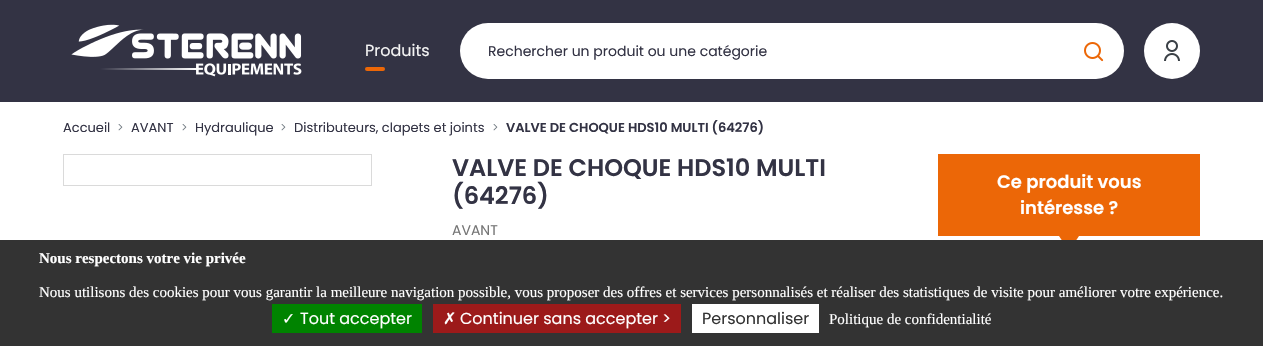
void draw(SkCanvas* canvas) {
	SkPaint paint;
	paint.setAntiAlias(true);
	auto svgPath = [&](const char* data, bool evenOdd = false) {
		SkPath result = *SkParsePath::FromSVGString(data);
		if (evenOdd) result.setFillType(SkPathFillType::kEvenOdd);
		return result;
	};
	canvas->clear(0xffffffff);
	paint.setColor(0xff333344);
	canvas->drawRect(SkRect::MakeXYWH(0, 0, 1263, 102), paint);
	canvas->drawImageRect(SkImages::DeferredFromEncodedData(SkData::MakeFromFileName("img1.png")), SkRect::MakeXYWH(71, 24, 231, 53), SkSamplingOptions());
	SkFont f1(fontMgr->matchFamilyStyle("Poppins", SkFontStyle::Normal()), 16);
	f1.setSubpixel(true);
	paint.setColor(0xfff4f4f4);
	canvas->drawString("Produits", 365, 56, f1, paint);
	paint.setColor(0xffec6707);
	canvas->drawRoundRect(SkRect::MakeXYWH(365, 67, 20, 4), 2, 2, paint);
	paint.setColor(0xffffffff);
	canvas->drawRoundRect(SkRect::MakeXYWH(460, 23, 664, 56), 28, 28, paint);
	SkFont f2(fontMgr->matchFamilyStyle("Poppins", SkFontStyle::Normal()), 14);
	f2.setSubpixel(true);
	paint.setColor(0xff333344);
	canvas->drawString("Rechercher un produit ou une catégorie", 488, 56, f2, paint);
	canvas->drawImageRect(SkImages::DeferredFromEncodedData(SkData::MakeFromFileName("img2.png")), SkRect::MakeXYWH(1084, 42, 20, 20), SkSamplingOptions());
	paint.setColor(0xffffffff);
	canvas->drawCircle(1172, 51, 28, paint);
	canvas->drawImageRect(SkImages::DeferredFromEncodedData(SkData::MakeFromFileName("img3.png")), SkRect::MakeXYWH(1164, 40, 16, 21), SkSamplingOptions());
	SkFont f3(fontMgr->matchFamilyStyle("Poppins", SkFontStyle::Normal()), 13);
	f3.setSubpixel(true);
	paint.setColor(0xff333344);
	canvas->drawString("Accueil", 63, 132, f3, paint);
	canvas->drawImageRect(SkImages::DeferredFromEncodedData(SkData::MakeFromFileName("img4.png")), SkRect::MakeXYWH(118, 124, 5, 7), SkSamplingOptions());
	canvas->drawString("AVANT", 131, 132, f3, paint);
	canvas->drawImageRect(SkImages::DeferredFromEncodedData(SkData::MakeFromFileName("img4.png")), SkRect::MakeXYWH(182, 124, 5, 7), SkSamplingOptions());
	canvas->drawString("Hydraulique", 195, 132, f3, paint);
	canvas->drawImageRect(SkImages::DeferredFromEncodedData(SkData::MakeFromFileName("img4.png")), SkRect::MakeXYWH(281, 124, 5, 7), SkSamplingOptions());
	canvas->drawString("Distributeurs, clapets et joints", 294, 132, f3, paint);
	canvas->drawImageRect(SkImages::DeferredFromEncodedData(SkData::MakeFromFileName("img4.png")), SkRect::MakeXYWH(493, 124, 5, 7), SkSamplingOptions());
	SkFont f4(fontMgr->matchFamilyStyle("Poppins", SkFontStyle(600, SkFontStyle::kNormal_Width, SkFontStyle::kUpright_Slant)), 13);
	f4.setSubpixel(true);
	canvas->drawString("VALVE DE CHOQUE HDS10 MULTI (64276)", 506, 132, f4, paint);
	paint.setStroke(true);
	paint.setStrokeWidth(1);
	paint.setColor(0xffdadada);
	canvas->drawRect(SkRect::MakeXYWH(63.5, 154.5, 308, 31), paint);
	SkFont f5(fontMgr->matchFamilyStyle("Poppins", SkFontStyle(600, SkFontStyle::kNormal_Width, SkFontStyle::kUpright_Slant)), 24);
	f5.setSubpixel(true);
	paint.setStroke(false);
	paint.setColor(0xff333344);
	canvas->drawString("VALVE DE CHOQUE HDS10 MULTI", 452, 176, f5, paint);
	canvas->drawString("(64276)", 452, 204, f5, paint);
	paint.setColor(0xff757575);
	canvas->drawString("AVANT", 452, 235, f2, paint);
	paint.setColor(0xffec6707);
	canvas->drawRect(SkRect::MakeXYWH(938, 154, 262, 82), paint);
	SkFont f6(fontMgr->matchFamilyStyle("Poppins", SkFontStyle(600, SkFontStyle::kNormal_Width, SkFontStyle::kUpright_Slant)), 18);
	f6.setSubpixel(true);
	paint.setColor(0xffffffff);
	canvas->drawString("Ce produit vous", 997, 188, f6, paint);
	canvas->drawString("intéresse ?", 1020, 214, f6, paint);
	paint.setColor(0xffec6707);
	canvas->drawPath(svgPath("M1059 236H1079L1069 251Z"), paint);
	paint.setColor(0xff333333);
	canvas->drawRect(SkRect::MakeXYWH(0, 240, 1263, 106), paint);
	SkFont f7(fontMgr->matchFamilyStyle("Liberation Serif", SkFontStyle::Bold()), 15);
	f7.setSubpixel(true);
	paint.setColor(0xffffffff);
	canvas->drawString("Nous respectons votre vie privée", 39, 263, f7, paint);
	SkFont f8(fontMgr->matchFamilyStyle("Liberation Serif", SkFontStyle::Normal()), 15);
	f8.setSubpixel(true);
	canvas->drawString("Nous utilisons des cookies pour vous garantir la meilleure navigation possible, vous proposer des offres et services personnalisés et réaliser des statistiques de visite pour améliorer votre expérience.", 39, 297, f8, paint);
	paint.setColor(0xff008300);
	canvas->drawRect(SkRect::MakeXYWH(272, 304, 150, 29), paint);
	SkFont f9(fontMgr->matchFamilyStyle("DejaVu Sans", SkFontStyle::Normal()), 16);
	f9.setSubpixel(true);
	paint.setColor(0xffffffff);
	canvas->drawString("✓", 282, 324, f9, paint);
	canvas->drawString("Tout accepter", 300, 324, f1, paint);
	paint.setColor(0xff9c1a1a);
	canvas->drawRect(SkRect::MakeXYWH(433, 304, 248, 29), paint);
	paint.setColor(0xffffffff);
	canvas->drawString("✗", 443, 324, f9, paint);
	canvas->drawString("Continuer sans accepter >", 460, 324, f1, paint);
	canvas->drawRect(SkRect::MakeXYWH(692, 304, 127, 29), paint);
	paint.setColor(0xff333333);
	canvas->drawString("Personnaliser", 702, 324, f1, paint);
	paint.setColor(0xffffffff);
	canvas->drawString("Politique de confidentialité", 829, 324, f8, paint);
}
